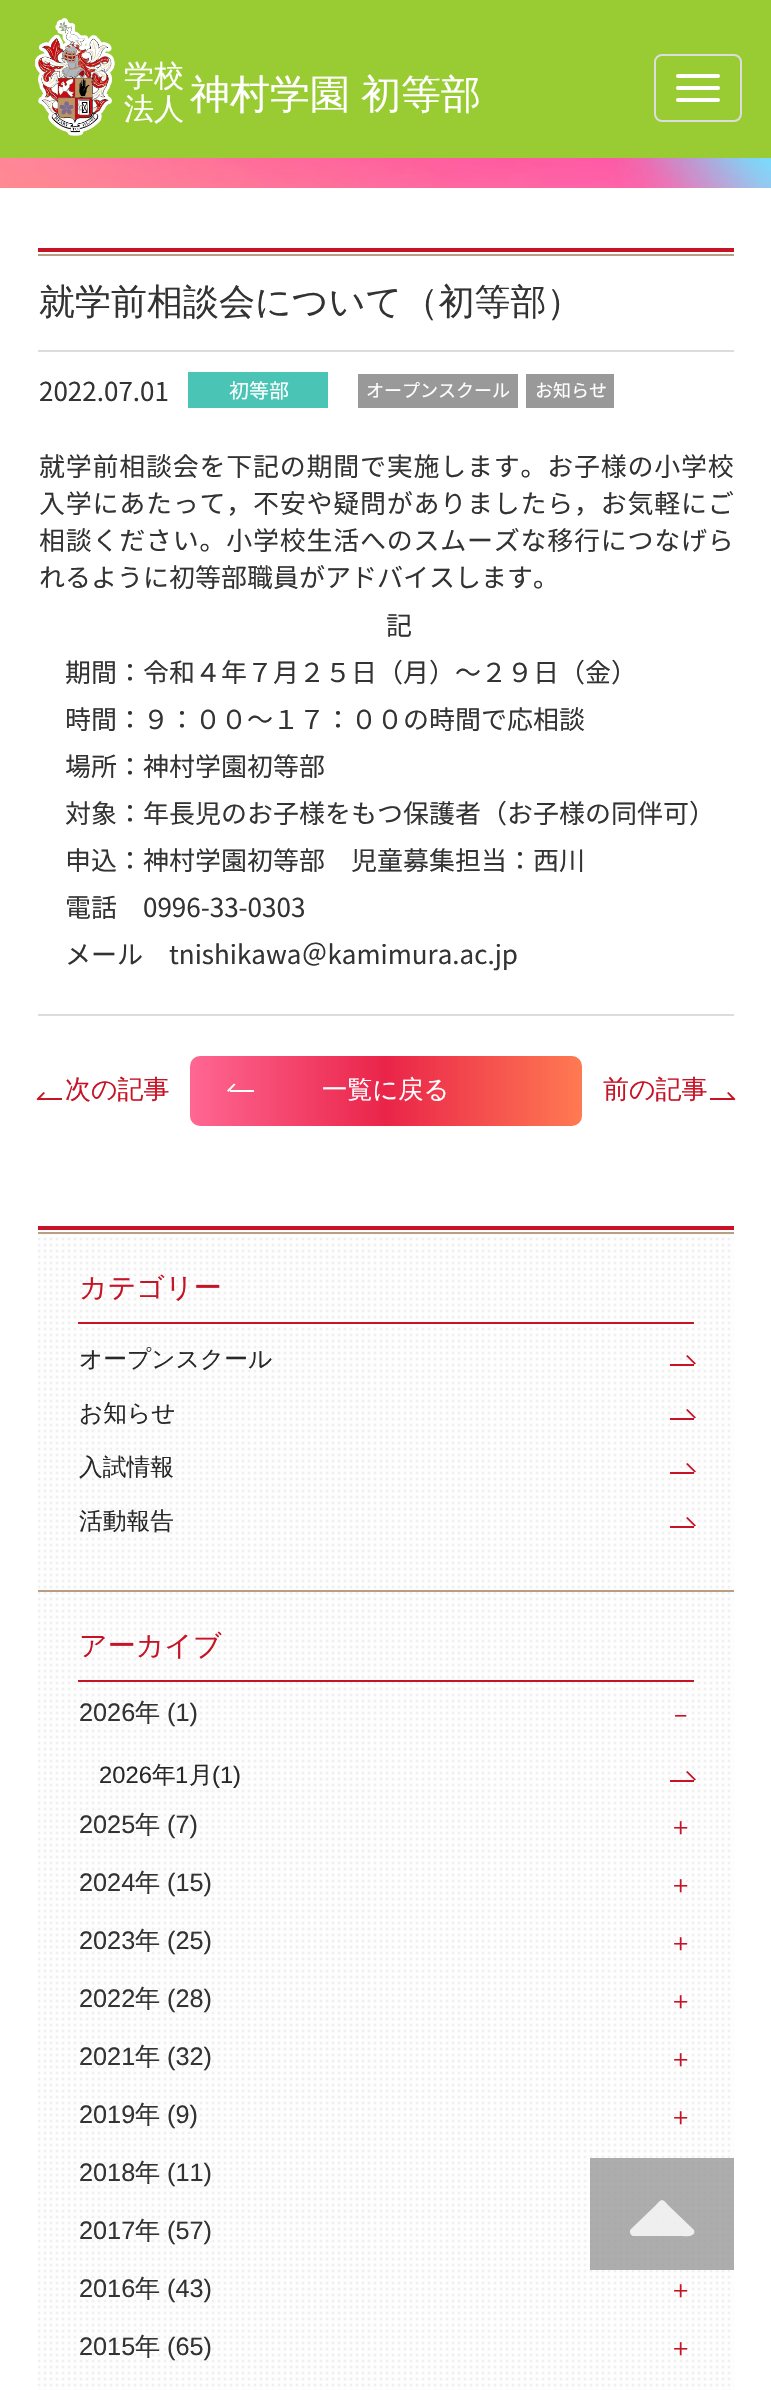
void draw(SkCanvas* canvas) {
	SkPaint paint;
	paint.setAntiAlias(true);
	auto spacedText = [&](const char* s, float x, float y, const SkFont& font, const SkPaint& ink, float letter, float word) {
		std::vector<SkGlyphID> glyphs(font.countText(s, strlen(s), SkTextEncoding::kUTF8));
		std::vector<float> xs(glyphs.size());
		font.textToGlyphs(s, strlen(s), SkTextEncoding::kUTF8, glyphs);
		font.getXPos(glyphs, xs, x);
		float extra = 0;
		for (size_t i = 0; i < glyphs.size(); i++) {
			xs[i] += extra;
			extra += letter + word * (glyphs[i] == font.unicharToGlyph(' '));
		}
		canvas->drawTextBlob(SkTextBlob::MakeFromPosHGlyphs(glyphs, xs, y, font), 0, 0, ink);
	};
	auto svgPath = [&](const char* data, bool evenOdd = false) {
		SkPath result = *SkParsePath::FromSVGString(data);
		if (evenOdd) result.setFillType(SkPathFillType::kEvenOdd);
		return result;
	};
	canvas->clear(0xffffffff);
	paint.setColor(0xff99cc33);
	canvas->drawRect(SkRect::MakeXYWH(0, 0, 771, 158), paint);
	canvas->drawImageRect(SkImages::DeferredFromEncodedData(SkData::MakeFromFileName("img1.png")), SkRect::MakeXYWH(35, 18, 80, 118), SkSamplingOptions());
	SkFont f1(fontMgr->matchFamilyStyle("WenQuanYi Zen Hei", SkFontStyle(500, SkFontStyle::kNormal_Width, SkFontStyle::kUpright_Slant)), 30);
	f1.setSubpixel(true);
	paint.setColor(0xffffffff);
	canvas->drawString("学校", 124, 86, f1, paint);
	canvas->drawString("法人", 124, 119, f1, paint);
	SkFont f2(fontMgr->matchFamilyStyle("WenQuanYi Zen Hei", SkFontStyle(500, SkFontStyle::kNormal_Width, SkFontStyle::kUpright_Slant)), 40);
	f2.setSubpixel(true);
	spacedText("神村学園 初等部", 190, 108, f2, paint, 0, -1);
	paint.setStroke(true);
	paint.setStrokeWidth(2);
	paint.setColor(0xffdddddd);
	canvas->drawRoundRect(SkRect::MakeXYWH(655, 55, 86, 66), 7, 7, paint);
	paint.setStroke(false);
	paint.setColor(0xffffffff);
	canvas->drawRoundRect(SkRect::MakeXYWH(676, 74, 44, 4), 2, 2, paint);
	canvas->drawRoundRect(SkRect::MakeXYWH(676, 86, 44, 4), 2, 2, paint);
	canvas->drawRoundRect(SkRect::MakeXYWH(676, 98, 44, 4), 2, 2, paint);
	canvas->drawImageRect(SkImages::DeferredFromEncodedData(SkData::MakeFromFileName("img2.png")), SkRect::MakeXYWH(0, 158, 771, 30), SkSamplingOptions());
	paint.setColor(0xffc61426);
	canvas->drawRect(SkRect::MakeXYWH(38, 248, 696, 4), paint);
	paint.setColor(0xffba9d83);
	canvas->drawRect(SkRect::MakeXYWH(38, 254, 696, 2), paint);
	paint.setColor(0xffdcdcdc);
	canvas->drawRect(SkRect::MakeXYWH(38, 1014, 696, 2), paint);
	canvas->drawRect(SkRect::MakeXYWH(38, 350, 696, 2), paint);
	SkFont f3(fontMgr->matchFamilyStyle("WenQuanYi Zen Hei", SkFontStyle(500, SkFontStyle::kNormal_Width, SkFontStyle::kUpright_Slant)), 36);
	f3.setSubpixel(true);
	paint.setColor(0xff333333);
	canvas->drawString("就学前相談会について（初等部）", 39, 314, f3, paint);
	SkFont f4(fontMgr->matchFamilyStyle("Noto Sans JP", SkFontStyle::Normal()), 26);
	f4.setSubpixel(true);
	canvas->drawString("2022.07.01", 39, 401, f4, paint);
	paint.setColor(0xff49c4b5);
	canvas->drawRect(SkRect::MakeXYWH(188, 372, 140, 36), paint);
	SkFont f5(fontMgr->matchFamilyStyle("Noto Sans JP", SkFontStyle::Normal()), 20);
	f5.setSubpixel(true);
	paint.setColor(0xffffffff);
	canvas->drawString("初等部", 229, 398, f5, paint);
	paint.setColor(0xff999999);
	canvas->drawRect(SkRect::MakeXYWH(358, 374, 160, 34), paint);
	SkFont f6(fontMgr->matchFamilyStyle("Noto Sans JP", SkFontStyle::Normal()), 18);
	f6.setSubpixel(true);
	paint.setColor(0xffffffff);
	canvas->drawString("オープンスクール", 366, 397, f6, paint);
	paint.setColor(0xff999999);
	canvas->drawRect(SkRect::MakeXYWH(526, 374, 88, 34), paint);
	paint.setColor(0xffffffff);
	canvas->drawString("お知らせ", 535, 397, f6, paint);
	paint.setColor(0xff333333);
	spacedText("就学前相談会を下記の期間で実施します。お子様の小学校", 39, 476, f4, paint, 0.75, 0);
	spacedText("入学にあたって，不安や疑問がありましたら，お気軽にご", 39, 513, f4, paint, 0.75, 0);
	spacedText("相談ください。小学校生活へのスムーズな移行につなげら", 39, 550, f4, paint, 0.75, 0);
	canvas->drawString("れるように初等部職員がアドバイスします。", 39, 587, f4, paint);
	canvas->drawString("記", 386, 635, f4, paint);
	canvas->drawString("期間：令和４年７月２５日（月）", 65, 682, f4, paint);
	SkFont f7(fontMgr->matchFamilyStyle("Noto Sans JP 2", SkFontStyle::Normal()), 26);
	f7.setSubpixel(true);
	canvas->drawString("～", 455, 682, f7, paint);
	canvas->drawString("２９日（金）", 481, 682, f4, paint);
	canvas->drawString("時間：９：００", 65, 729, f4, paint);
	canvas->drawString("～", 247, 729, f7, paint);
	canvas->drawString("１７：００の時間で応相談", 273, 729, f4, paint);
	canvas->drawString("場所：神村学園初等部", 65, 776, f4, paint);
	canvas->drawString("対象：年長児のお子様をもつ保護者（お子様の同伴可）", 65, 823, f4, paint);
	canvas->drawString("申込：神村学園初等部　児童募集担当：西川", 65, 870, f4, paint);
	canvas->drawString("電話　0996-33-0303", 65, 917, f4, paint);
	canvas->drawString("メール　tnishikawa＠kamimura.ac.jp", 65, 964, f4, paint);
	paint.setColor(0xffc61426);
	canvas->drawRect(SkRect::MakeXYWH(38, 1098, 24, 2), paint);
	canvas->drawPath(svgPath("M36.5 1099L43.5 1092L45 1093L38 1100.5Z"), paint);
	SkFont f8(fontMgr->matchFamilyStyle("WenQuanYi Zen Hei", SkFontStyle(500, SkFontStyle::kNormal_Width, SkFontStyle::kUpright_Slant)), 26);
	f8.setSubpixel(true);
	canvas->drawString("次の記事", 65, 1098, f8, paint);
	{
		const SkColor colors[] = {0xffff6793, 0xffea2449, 0xffff7a52};
		const float stops[] = {0, 0.5, 1};
		const SkPoint ends[] = {{190, 1091}, {582, 1091}};
		paint.setShader(SkGradientShader::MakeLinear(ends, colors, stops, 3, SkTileMode::kClamp));
		paint.setAlpha(255);
	}
	canvas->drawRoundRect(SkRect::MakeXYWH(190, 1056, 392, 70), 10, 10, paint);
	paint.setShader(nullptr);
	paint.setColor(0xffffffff);
	canvas->drawRect(SkRect::MakeXYWH(230, 1090, 24, 2), paint);
	canvas->drawPath(svgPath("M227 1090.5L234 1083.5L235.5 1084.5L228.5 1092Z"), paint);
	SkFont f9(fontMgr->matchFamilyStyle("WenQuanYi Zen Hei", SkFontStyle(500, SkFontStyle::kNormal_Width, SkFontStyle::kUpright_Slant)), 25.25);
	f9.setSubpixel(true);
	canvas->drawString("一覧に戻る", 322, 1098, f9, paint);
	paint.setColor(0xffc61426);
	canvas->drawString("前の記事", 603, 1098, f8, paint);
	canvas->drawRect(SkRect::MakeXYWH(710, 1098, 24, 2), paint);
	canvas->drawPath(svgPath("M728.5 1092L735.5 1099L734 1100.5L727 1093Z"), paint);
	canvas->drawRect(SkRect::MakeXYWH(38, 1226, 696, 4), paint);
	canvas->drawImageRect(SkImages::DeferredFromEncodedData(SkData::MakeFromFileName("img3.png")), SkRect::MakeXYWH(38, 1234, 696, 1156), SkSamplingOptions());
	paint.setColor(0xffba9d83);
	canvas->drawRect(SkRect::MakeXYWH(38, 1232, 696, 2), paint);
	SkFont f10(fontMgr->matchFamilyStyle("WenQuanYi Zen Hei", SkFontStyle(500, SkFontStyle::kNormal_Width, SkFontStyle::kUpright_Slant)), 28);
	f10.setSubpixel(true);
	paint.setColor(0xffc61426);
	canvas->drawString("カテゴリー", 79, 1297, f10, paint);
	canvas->drawRect(SkRect::MakeXYWH(78, 1322, 616, 2), paint);
	SkFont f11(fontMgr->matchFamilyStyle("WenQuanYi Zen Hei", SkFontStyle(500, SkFontStyle::kNormal_Width, SkFontStyle::kUpright_Slant)), 23.75);
	f11.setSubpixel(true);
	paint.setColor(0xff282828);
	canvas->drawString("オープンスクール", 79, 1367, f11, paint);
	paint.setColor(0xffc61426);
	canvas->drawRect(SkRect::MakeXYWH(670, 1364, 24, 2), paint);
	canvas->drawPath(svgPath("M687.5 1355L696 1363.5L694.5 1364.5L686 1356Z"), paint);
	paint.setColor(0xff282828);
	canvas->drawString("お知らせ", 79, 1421, f11, paint);
	paint.setColor(0xffc61426);
	canvas->drawRect(SkRect::MakeXYWH(670, 1418, 24, 2), paint);
	canvas->drawPath(svgPath("M687.5 1409L696 1417.5L694.5 1418.5L686 1410Z"), paint);
	paint.setColor(0xff282828);
	canvas->drawString("入試情報", 79, 1475, f11, paint);
	paint.setColor(0xffc61426);
	canvas->drawRect(SkRect::MakeXYWH(670, 1472, 24, 2), paint);
	canvas->drawPath(svgPath("M687.5 1463L696 1471.5L694.5 1472.5L686 1464Z"), paint);
	paint.setColor(0xff282828);
	canvas->drawString("活動報告", 79, 1529, f11, paint);
	paint.setColor(0xffc61426);
	canvas->drawRect(SkRect::MakeXYWH(670, 1526, 24, 2), paint);
	canvas->drawPath(svgPath("M687.5 1517L696 1525.5L694.5 1526.5L686 1518Z"), paint);
	paint.setColor(0xffba9d83);
	canvas->drawRect(SkRect::MakeXYWH(38, 1590, 696, 2), paint);
	paint.setColor(0xffc61426);
	canvas->drawString("アーカイブ", 79, 1655, f10, paint);
	canvas->drawRect(SkRect::MakeXYWH(78, 1680, 616, 2), paint);
	SkFont f12(fontMgr->matchFamilyStyle("Liberation Sans", SkFontStyle::Normal()), 25.25);
	f12.setSubpixel(true);
	paint.setColor(0xff333333);
	canvas->drawString("2026", 79, 1721, f12, paint);
	canvas->drawString("年", 135, 1721, f9, paint);
	canvas->drawString("(1)", 167, 1721, f12, paint);
	paint.setColor(0xffc61426);
	canvas->drawString("－", 668, 1723, f9, paint);
	SkFont f13(fontMgr->matchFamilyStyle("Liberation Sans", SkFontStyle::Normal()), 23.75);
	f13.setSubpixel(true);
	paint.setColor(0xff282828);
	canvas->drawString("2026", 99, 1783, f13, paint);
	canvas->drawString("年", 152, 1783, f11, paint);
	canvas->drawString("1", 175, 1783, f13, paint);
	canvas->drawString("月", 189, 1783, f11, paint);
	canvas->drawString("(1)", 212, 1783, f13, paint);
	paint.setColor(0xffc61426);
	canvas->drawRect(SkRect::MakeXYWH(670, 1780, 24, 2), paint);
	canvas->drawPath(svgPath("M687.5 1771L696 1779.5L694.5 1780.5L686 1772Z"), paint);
	paint.setColor(0xff333333);
	canvas->drawString("2025", 79, 1833, f12, paint);
	canvas->drawString("年", 135, 1833, f9, paint);
	canvas->drawString("(7)", 167, 1833, f12, paint);
	paint.setColor(0xffc61426);
	canvas->drawString("＋", 668, 1835, f9, paint);
	paint.setColor(0xff333333);
	canvas->drawString("2024", 79, 1891, f12, paint);
	canvas->drawString("年", 135, 1891, f9, paint);
	canvas->drawString("(15)", 167, 1891, f12, paint);
	paint.setColor(0xffc61426);
	canvas->drawString("＋", 668, 1893, f9, paint);
	paint.setColor(0xff333333);
	canvas->drawString("2023", 79, 1949, f12, paint);
	canvas->drawString("年", 135, 1949, f9, paint);
	canvas->drawString("(25)", 167, 1949, f12, paint);
	paint.setColor(0xffc61426);
	canvas->drawString("＋", 668, 1951, f9, paint);
	paint.setColor(0xff333333);
	canvas->drawString("2022", 79, 2007, f12, paint);
	canvas->drawString("年", 135, 2007, f9, paint);
	canvas->drawString("(28)", 167, 2007, f12, paint);
	paint.setColor(0xffc61426);
	canvas->drawString("＋", 668, 2009, f9, paint);
	paint.setColor(0xff333333);
	canvas->drawString("2021", 79, 2065, f12, paint);
	canvas->drawString("年", 135, 2065, f9, paint);
	canvas->drawString("(32)", 167, 2065, f12, paint);
	paint.setColor(0xffc61426);
	canvas->drawString("＋", 668, 2067, f9, paint);
	paint.setColor(0xff333333);
	canvas->drawString("2019", 79, 2123, f12, paint);
	canvas->drawString("年", 135, 2123, f9, paint);
	canvas->drawString("(9)", 167, 2123, f12, paint);
	paint.setColor(0xffc61426);
	canvas->drawString("＋", 668, 2125, f9, paint);
	paint.setColor(0xff333333);
	canvas->drawString("2018", 79, 2181, f12, paint);
	canvas->drawString("年", 135, 2181, f9, paint);
	canvas->drawString("(11)", 167, 2181, f12, paint);
	canvas->drawString("2017", 79, 2239, f12, paint);
	canvas->drawString("年", 135, 2239, f9, paint);
	canvas->drawString("(57)", 167, 2239, f12, paint);
	canvas->drawString("2016", 79, 2297, f12, paint);
	canvas->drawString("年", 135, 2297, f9, paint);
	canvas->drawString("(43)", 167, 2297, f12, paint);
	paint.setColor(0xffc61426);
	canvas->drawString("＋", 668, 2298, f9, paint);
	paint.setColor(0xff333333);
	canvas->drawString("2015", 79, 2355, f12, paint);
	canvas->drawString("年", 135, 2355, f9, paint);
	canvas->drawString("(65)", 167, 2355, f12, paint);
	paint.setColor(0xffc61426);
	canvas->drawString("＋", 668, 2356, f9, paint);
	paint.setColor(0xcc999999);
	canvas->drawRect(SkRect::MakeXYWH(590, 2158, 144, 112), paint);
	paint.setColor(0xccffffff);
	canvas->drawPath(svgPath("M693 2229L694 2230C697 2238 682 2236 681 2236H633C630 2235 629 2231 631 2229L655 2206C662 2198 662 2198 669 2206Z"), paint);
}
